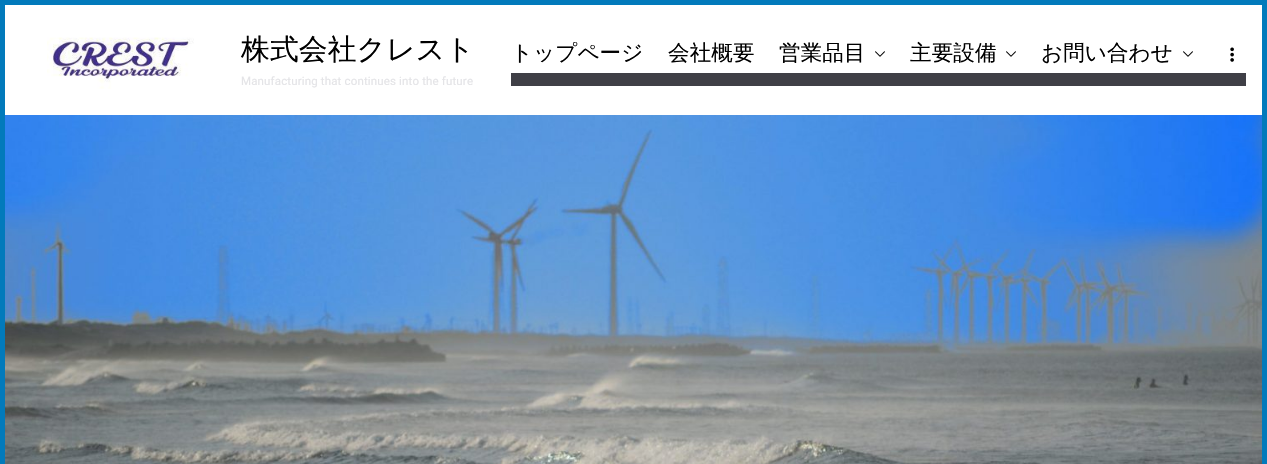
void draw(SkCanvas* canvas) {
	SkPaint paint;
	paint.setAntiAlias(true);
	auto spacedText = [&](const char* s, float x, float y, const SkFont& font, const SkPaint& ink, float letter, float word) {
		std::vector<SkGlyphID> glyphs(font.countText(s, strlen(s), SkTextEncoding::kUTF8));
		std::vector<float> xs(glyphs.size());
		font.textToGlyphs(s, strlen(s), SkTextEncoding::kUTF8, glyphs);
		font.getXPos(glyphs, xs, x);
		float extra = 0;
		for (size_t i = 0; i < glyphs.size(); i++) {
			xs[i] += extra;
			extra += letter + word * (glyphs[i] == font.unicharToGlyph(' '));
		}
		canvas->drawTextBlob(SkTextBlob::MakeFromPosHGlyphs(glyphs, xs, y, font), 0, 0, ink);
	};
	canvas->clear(0xffffffff);
	paint.setStroke(true);
	paint.setStrokeWidth(5);
	paint.setColor(0xff027abb);
	canvas->drawRect(SkRect::MakeXYWH(2.5, 2.5, 1262, 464), paint);
	canvas->drawImageRect(SkImages::DeferredFromEncodedData(SkData::MakeFromFileName("img1.png")), SkRect::MakeXYWH(47, 37, 147, 52), SkSamplingOptions());
	SkFont f1(fontMgr->matchFamilyStyle("WenQuanYi Zen Hei", SkFontStyle(500, SkFontStyle::kNormal_Width, SkFontStyle::kUpright_Slant)), 28.75);
	f1.setSubpixel(true);
	paint.setStroke(false);
	paint.setColor(0xff000000);
	spacedText("株式会社クレスト", 241, 59, f1, paint, 0.15, 0);
	SkFont f2(fontMgr->matchFamilyStyle("Roboto", SkFontStyle::Normal()), 11.5);
	f2.setSubpixel(true);
	paint.setColor(0xffe4e4e7);
	spacedText("Manufacturing that continues into the future", 241, 85, f2, paint, 0.15, 0);
	paint.setColor(0xff3f3f46);
	canvas->drawRect(SkRect::MakeXYWH(511, 73, 735, 13), paint);
	SkFont f3(fontMgr->matchFamilyStyle("WenQuanYi Zen Hei", SkFontStyle(500, SkFontStyle::kNormal_Width, SkFontStyle::kUpright_Slant)), 21.5);
	f3.setSubpixel(true);
	paint.setColor(0xff000000);
	spacedText("トップページ", 511, 60, f3, paint, 0.15, 0);
	spacedText("会社概要", 668, 60, f3, paint, 0.15, 0);
	spacedText("営業品目", 779, 60, f3, paint, 0.15, 0);
	canvas->drawImageRect(SkImages::DeferredFromEncodedData(SkData::MakeFromFileName("img2.png")), SkRect::MakeXYWH(875, 51, 10, 6), SkSamplingOptions());
	spacedText("主要設備", 910, 60, f3, paint, 0.15, 0);
	canvas->drawImageRect(SkImages::DeferredFromEncodedData(SkData::MakeFromFileName("img2.png")), SkRect::MakeXYWH(1006, 51, 10, 6), SkSamplingOptions());
	spacedText("お問い合わせ", 1041, 60, f3, paint, 0.15, 0);
	canvas->drawImageRect(SkImages::DeferredFromEncodedData(SkData::MakeFromFileName("img2.png")), SkRect::MakeXYWH(1183, 51, 10, 6), SkSamplingOptions());
	canvas->drawImageRect(SkImages::DeferredFromEncodedData(SkData::MakeFromFileName("img3.png")), SkRect::MakeXYWH(1230, 47, 4, 15), SkSamplingOptions());
	canvas->drawImageRect(SkImages::DeferredFromEncodedData(SkData::MakeFromFileName("img4.png")), SkRect::MakeXYWH(5, 115, 1257, 349), SkSamplingOptions());
}
